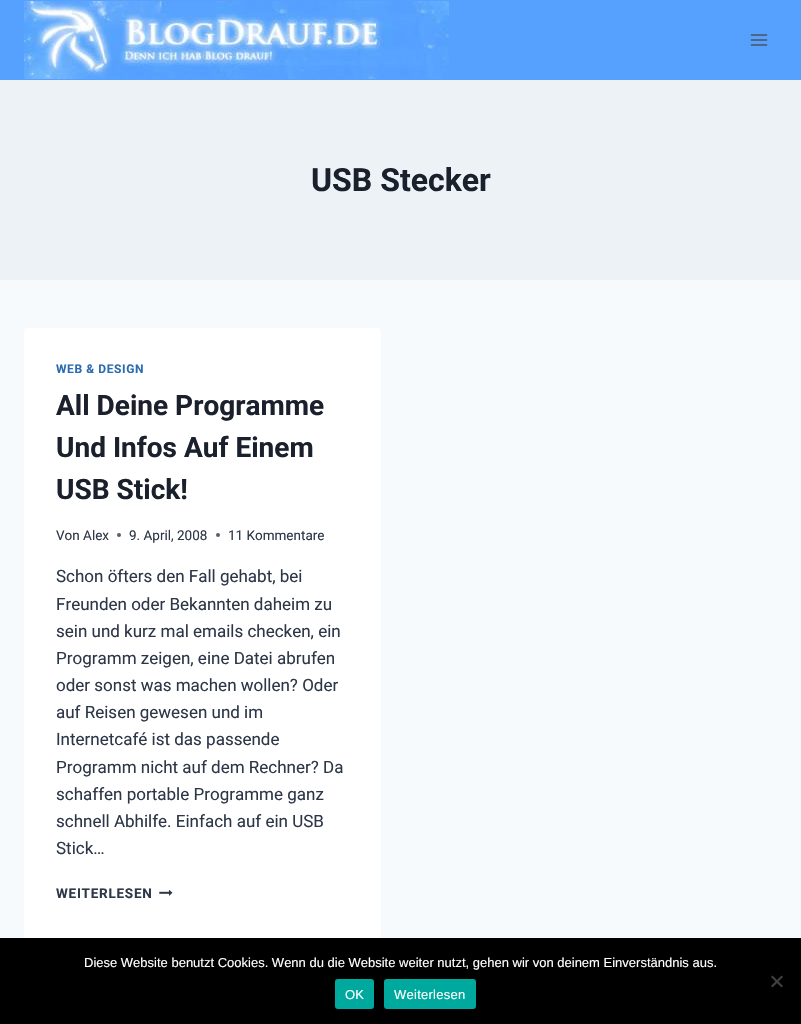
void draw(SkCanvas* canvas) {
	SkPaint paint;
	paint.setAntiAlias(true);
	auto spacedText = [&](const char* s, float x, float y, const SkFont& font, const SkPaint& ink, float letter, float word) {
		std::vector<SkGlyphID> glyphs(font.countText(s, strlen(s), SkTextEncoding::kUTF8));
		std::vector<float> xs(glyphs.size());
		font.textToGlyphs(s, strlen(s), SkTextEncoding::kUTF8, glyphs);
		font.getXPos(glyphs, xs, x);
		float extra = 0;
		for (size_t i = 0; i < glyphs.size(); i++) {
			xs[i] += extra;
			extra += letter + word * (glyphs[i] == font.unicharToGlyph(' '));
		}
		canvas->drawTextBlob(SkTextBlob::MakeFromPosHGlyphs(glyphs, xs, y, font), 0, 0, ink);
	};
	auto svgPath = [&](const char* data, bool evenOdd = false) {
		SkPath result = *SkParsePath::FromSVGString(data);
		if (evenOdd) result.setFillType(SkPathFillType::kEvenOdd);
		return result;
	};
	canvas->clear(0xfff7fafc);
	paint.setColor(0xff56a1fe);
	canvas->drawRect(SkRect::MakeXYWH(0, 0, 801, 80), paint);
	canvas->drawImageRect(SkImages::DeferredFromEncodedData(SkData::MakeFromFileName("img1.png")), SkRect::MakeXYWH(24, 1, 425, 78), SkSamplingOptions());
	canvas->drawImageRect(SkImages::DeferredFromEncodedData(SkData::MakeFromFileName("img2.png")), SkRect::MakeXYWH(750, 34, 18, 12), SkSamplingOptions());
	paint.setColor(0xffedf2f7);
	canvas->drawRect(SkRect::MakeXYWH(0, 80, 801, 200), paint);
	SkFont f1(fontMgr->matchFamilyStyle("Roboto", SkFontStyle::Bold()), 32);
	f1.setSubpixel(true);
	paint.setColor(0xff1a202c);
	canvas->drawString("USB Stecker", 311, 191, f1, paint);
	paint.setColor(0xffffffff);
	canvas->drawRoundRect(SkRect::MakeXYWH(24, 328, 357, 611), 4, 4, paint);
	SkFont f2(fontMgr->matchFamilyStyle("Roboto", SkFontStyle::Bold()), 12);
	f2.setSubpixel(true);
	paint.setColor(0xff2b6cb0);
	spacedText("WEB & DESIGN", 56, 373, f2, paint, 0.6, 0);
	SkFont f3(fontMgr->matchFamilyStyle("Roboto", SkFontStyle::Bold()), 28);
	f3.setSubpixel(true);
	paint.setColor(0xff1a202c);
	canvas->drawString("All Deine Programme", 56, 415, f3, paint);
	canvas->drawString("Und Infos Auf Einem", 56, 457, f3, paint);
	canvas->drawString("USB Stick!", 56, 499, f3, paint);
	SkFont f4(fontMgr->matchFamilyStyle("Roboto", SkFontStyle::Normal()), 13.5);
	f4.setSubpixel(true);
	paint.setColor(0xff2d3748);
	canvas->drawString("Von Alex", 56, 540, f4, paint);
	paint.setColor(0xff575f6d);
	canvas->drawCircle(119, 535, 2, paint);
	paint.setColor(0xff2d3748);
	canvas->drawString("9. April, 2008", 129, 540, f4, paint);
	paint.setColor(0xff575f6d);
	canvas->drawCircle(218, 535, 2, paint);
	paint.setColor(0xff2d3748);
	canvas->drawString("11 Kommentare", 228, 540, f4, paint);
	SkFont f5(fontMgr->matchFamilyStyle("Roboto", SkFontStyle::Normal()), 17);
	f5.setSubpixel(true);
	canvas->drawString("Schon öfters den Fall gehabt, bei", 56, 582, f5, paint);
	canvas->drawString("Freunden oder Bekannten daheim zu", 56, 610, f5, paint);
	canvas->drawString("sein und kurz mal emails checken, ein", 56, 637, f5, paint);
	canvas->drawString("Programm zeigen, eine Datei abrufen", 56, 664, f5, paint);
	canvas->drawString("oder sonst was machen wollen? Oder", 56, 691, f5, paint);
	canvas->drawString("auf Reisen gewesen und im", 56, 718, f5, paint);
	canvas->drawString("Internetcafé ist das passende", 56, 745, f5, paint);
	canvas->drawString("Programm nicht auf dem Rechner? Da", 56, 773, f5, paint);
	canvas->drawString("schaffen portable Programme ganz", 56, 800, f5, paint);
	canvas->drawString("schnell Abhilfe. Einfach auf ein USB", 56, 827, f5, paint);
	canvas->drawString("Stick…", 56, 854, f5, paint);
	SkFont f6(fontMgr->matchFamilyStyle("Roboto", SkFontStyle::Bold()), 13.5);
	f6.setSubpixel(true);
	spacedText("WEITERLESEN", 56, 898, f6, paint, 0.75, 0);
	canvas->drawImageRect(SkImages::DeferredFromEncodedData(SkData::MakeFromFileName("img3.png")), SkRect::MakeXYWH(159, 889, 14, 7), SkSamplingOptions());
	paint.setColor(0xff000000);
	canvas->drawRect(SkRect::MakeXYWH(0, 938, 801, 86), paint);
	SkFont f7(fontMgr->matchFamilyStyle("Liberation Sans", SkFontStyle::Normal()), 13);
	f7.setSubpixel(true);
	paint.setColor(0xffffffff);
	canvas->drawString("Diese Website benutzt Cookies. Wenn du die Website weiter nutzt, gehen wir von deinem Einverständnis aus.", 84, 967, f7, paint);
	paint.setColor(0xff404040);
	canvas->drawPath(svgPath("M781.5 975.5L783 977L772.5 987.5L771 986Z"), paint);
	canvas->drawPath(svgPath("M771 977L772.5 975.5L783 986L781.5 987.5Z"), paint);
	paint.setColor(0xff00a99d);
	canvas->drawRoundRect(SkRect::MakeXYWH(335, 979, 39, 30), 3, 3, paint);
	paint.setColor(0xffffffff);
	spacedText("OK", 345, 999, f7, paint, 0.25, 0);
	paint.setColor(0xff00a99d);
	canvas->drawRoundRect(SkRect::MakeXYWH(384, 979, 92, 30), 3, 3, paint);
	paint.setColor(0xffffffff);
	spacedText("Weiterlesen", 394, 999, f7, paint, 0.25, 0);
}
